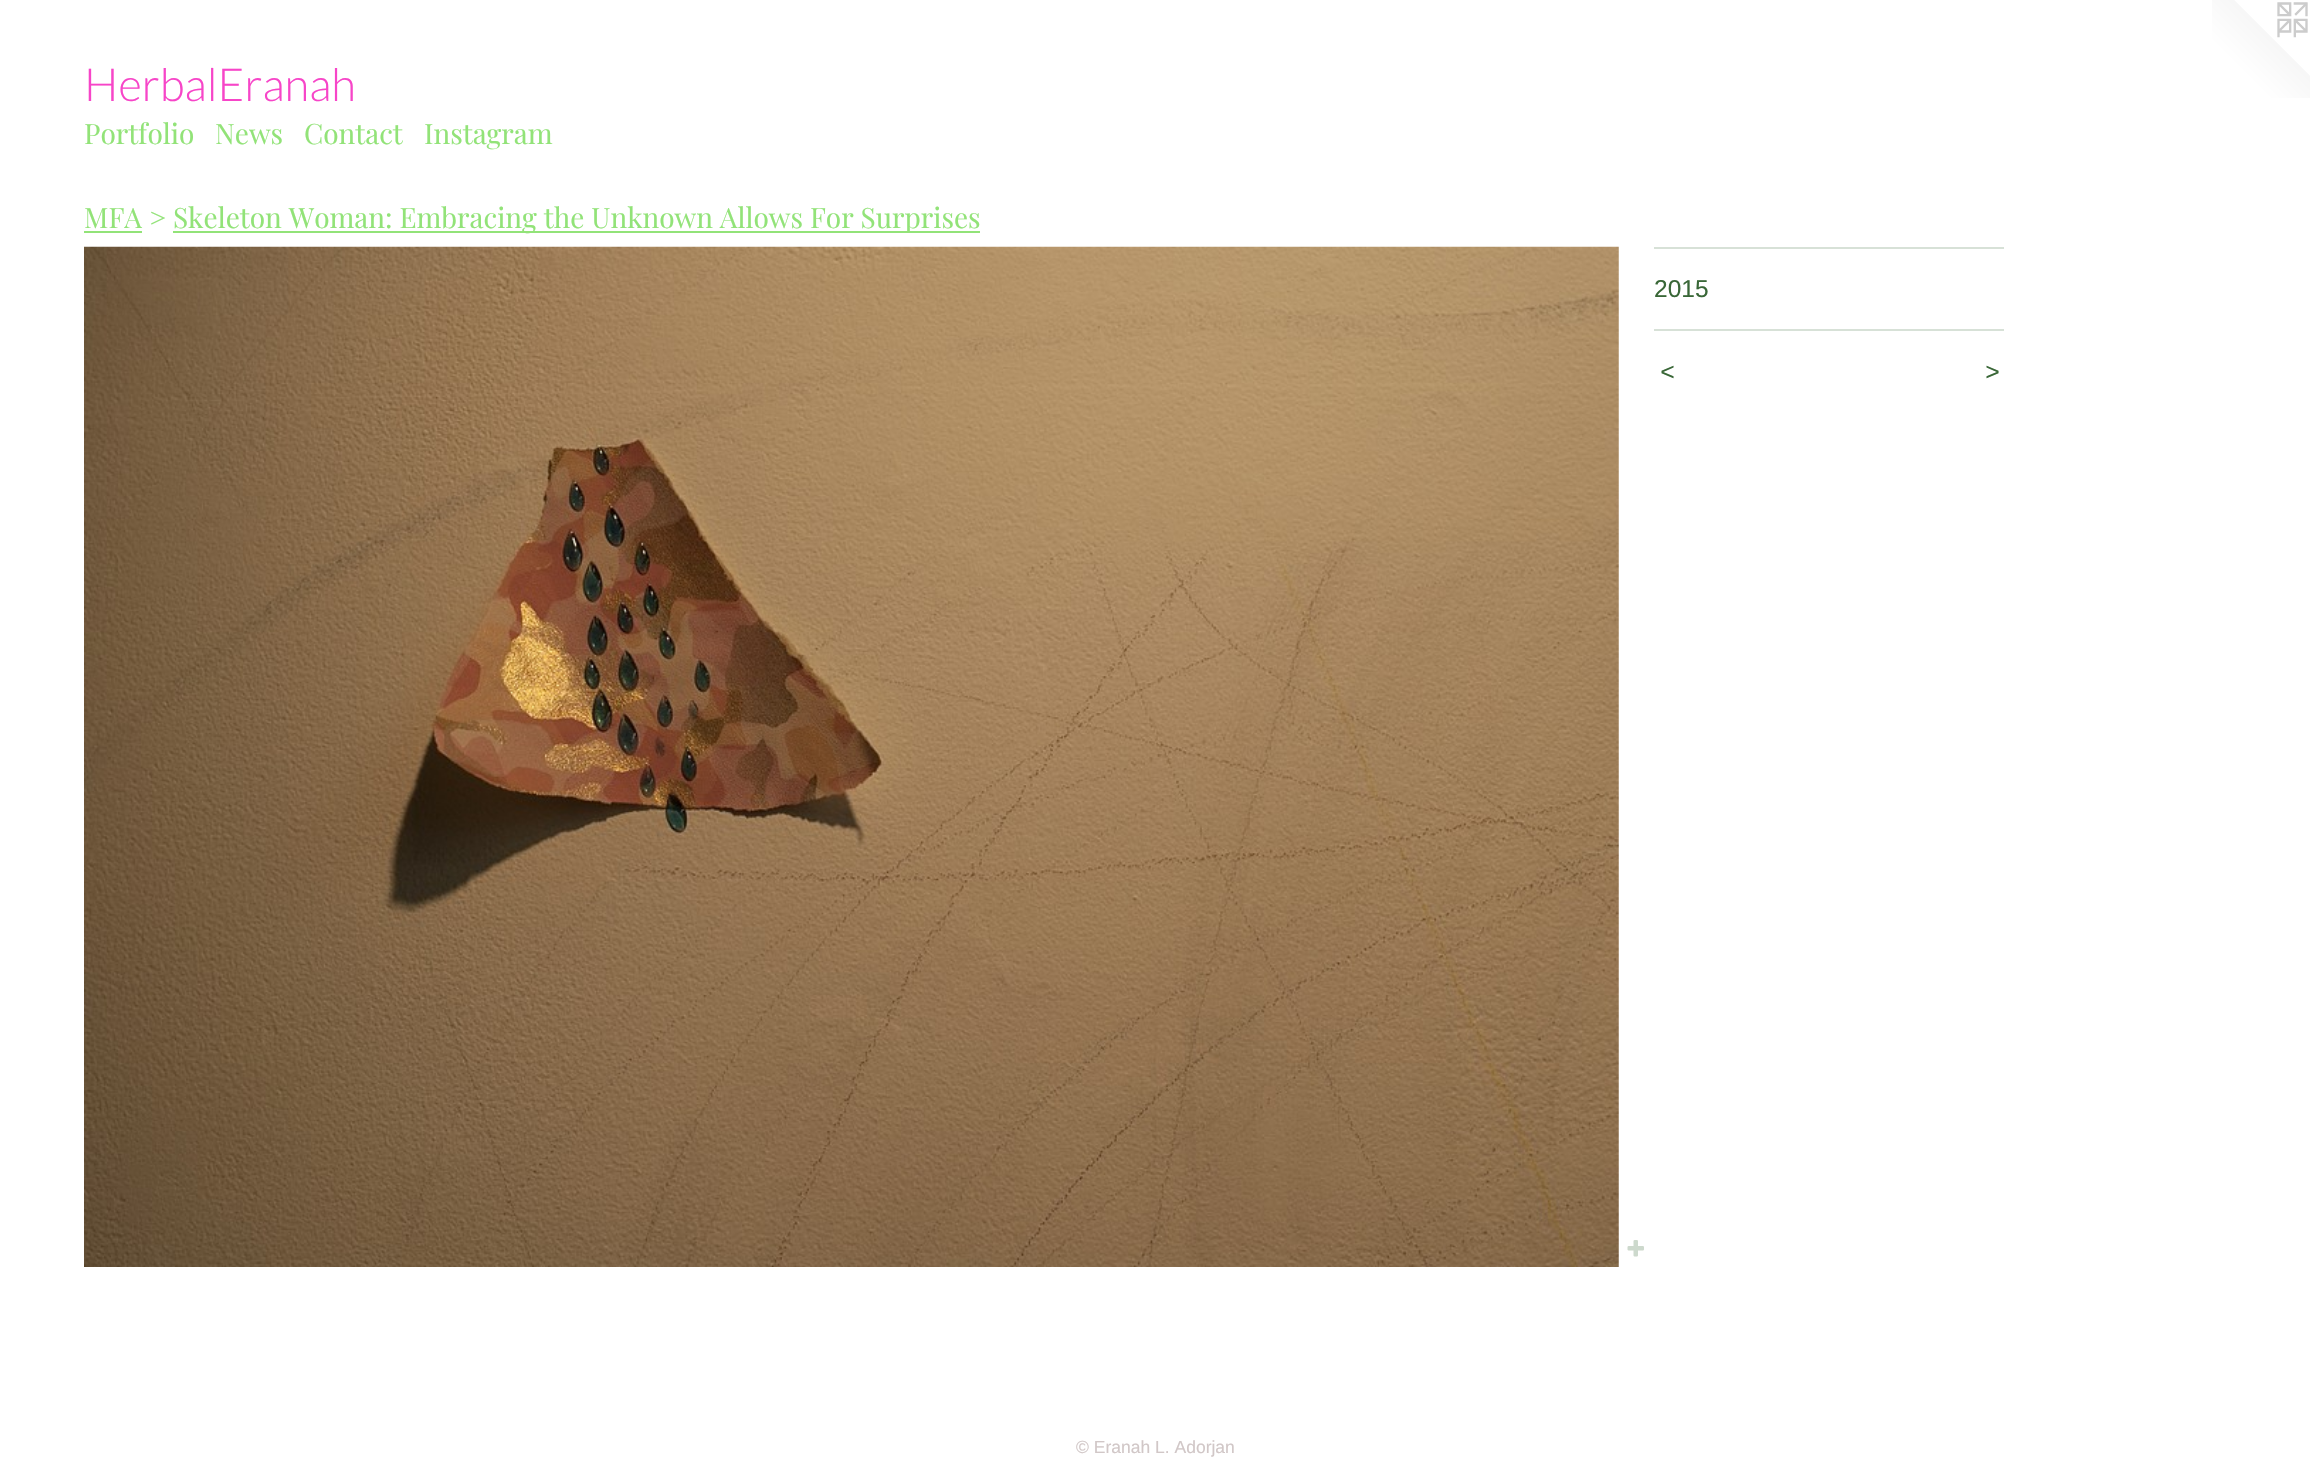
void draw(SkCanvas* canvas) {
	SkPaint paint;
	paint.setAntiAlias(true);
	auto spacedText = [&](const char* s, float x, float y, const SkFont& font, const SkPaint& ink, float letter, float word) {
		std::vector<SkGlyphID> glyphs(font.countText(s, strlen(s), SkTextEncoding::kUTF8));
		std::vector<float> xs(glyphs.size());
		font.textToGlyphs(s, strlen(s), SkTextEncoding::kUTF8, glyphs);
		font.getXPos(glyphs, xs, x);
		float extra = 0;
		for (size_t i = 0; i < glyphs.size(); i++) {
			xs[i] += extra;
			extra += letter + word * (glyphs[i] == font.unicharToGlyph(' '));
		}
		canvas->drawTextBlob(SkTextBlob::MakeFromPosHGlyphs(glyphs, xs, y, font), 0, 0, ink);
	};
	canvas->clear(0xffffffff);
	SkFont f1(fontMgr->matchFamilyStyle("Lato", SkFontStyle(300, SkFontStyle::kNormal_Width, SkFontStyle::kUpright_Slant)), 45.5);
	f1.setSubpixel(true);
	paint.setColor(0xfff745c8);
	canvas->drawString("HerbalEranah", 84, 101, f1, paint);
	canvas->drawImageRect(SkImages::DeferredFromEncodedData(SkData::MakeFromFileName("img1.png")), SkRect::MakeXYWH(2212, 0, 98, 98), SkSamplingOptions());
	SkFont f2(fontMgr->matchFamilyStyle("Playfair Display", SkFontStyle::Normal()), 28);
	f2.setSubpixel(true);
	paint.setColor(0xff92e378);
	canvas->drawString("Portfolio", 84, 144, f2, paint);
	canvas->drawString("News", 215, 144, f2, paint);
	canvas->drawString("Contact", 304, 144, f2, paint);
	canvas->drawString("Instagram", 424, 144, f2, paint);
	canvas->drawString("MFA >", 84, 228, f2, paint);
	canvas->drawRect(SkRect::MakeXYWH(84, 231, 58, 2), paint);
	canvas->drawRect(SkRect::MakeXYWH(173, 231, 807, 2), paint);
	canvas->drawString("Skeleton Woman: Embracing the Unknown Allows For Surprises", 173, 228, f2, paint);
	canvas->drawImageRect(SkImages::DeferredFromEncodedData(SkData::MakeFromFileName("img2.png")), SkRect::MakeXYWH(84, 246, 1535, 1021), SkSamplingOptions());
	canvas->drawImageRect(SkImages::DeferredFromEncodedData(SkData::MakeFromFileName("img3.png")), SkRect::MakeXYWH(1627, 1240, 17, 17), SkSamplingOptions());
	paint.setColor(0xffd7e1d7);
	canvas->drawRect(SkRect::MakeXYWH(1654, 247, 350, 2), paint);
	SkFont f3(fontMgr->matchFamilyStyle("Liberation Sans", SkFontStyle::Normal()), 24.5);
	f3.setSubpixel(true);
	paint.setColor(0xff396737);
	canvas->drawString("2015", 1654, 297, f3, paint);
	paint.setColor(0xffd7e1d7);
	canvas->drawRect(SkRect::MakeXYWH(1654, 329, 350, 2), paint);
	SkFont f4(fontMgr->matchFamilyStyle("Liberation Sans", SkFontStyle::Italic()), 24.5);
	f4.setSubpixel(true);
	paint.setColor(0xff396737);
	spacedText("<", 1660, 380, f4, paint, 2, 0);
	spacedText(">", 1985, 380, f4, paint, 2, 0);
	SkFont f5(fontMgr->matchFamilyStyle("Liberation Sans", SkFontStyle::Normal()), 17.5);
	f5.setSubpixel(true);
	paint.setColor(0xffd1c7c7);
	canvas->drawString("© Eranah L. Adorjan", 1076, 1453, f5, paint);
}
